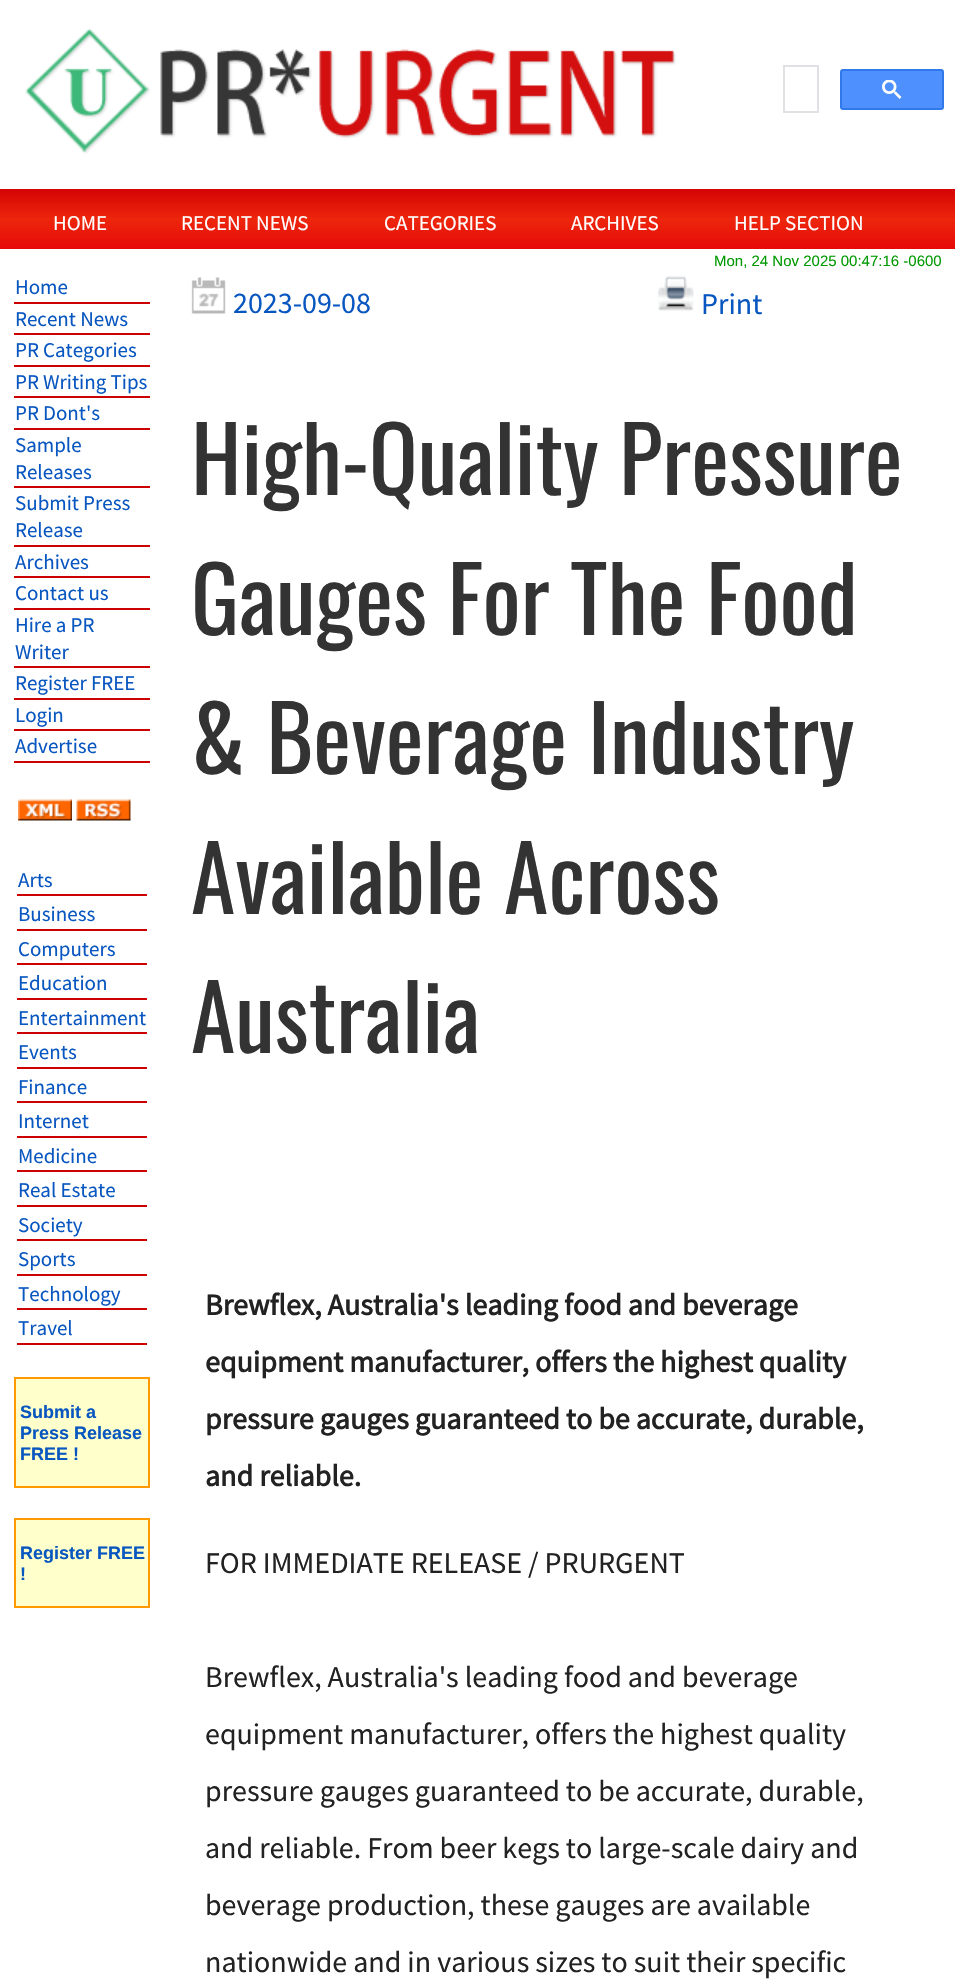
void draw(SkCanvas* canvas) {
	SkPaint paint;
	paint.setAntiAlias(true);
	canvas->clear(0xffffffff);
	canvas->drawImageRect(SkImages::DeferredFromEncodedData(SkData::MakeFromFileName("img1.png")), SkRect::MakeXYWH(25, 28, 651, 126), SkSamplingOptions());
	paint.setStroke(true);
	paint.setStrokeWidth(2);
	paint.setColor(0xffdfe1e5);
	canvas->drawRect(SkRect::MakeXYWH(784, 66, 34, 46), paint);
	paint.setStroke(false);
	paint.setColor(0xff4d90fe);
	canvas->drawRoundRect(SkRect::MakeXYWH(841, 70, 102, 39), 2, 2, paint);
	paint.setStroke(true);
	paint.setColor(0xff3079ed);
	canvas->drawRoundRect(SkRect::MakeXYWH(841, 70, 102, 39), 2, 2, paint);
	canvas->drawImageRect(SkImages::DeferredFromEncodedData(SkData::MakeFromFileName("img2.png")), SkRect::MakeXYWH(882, 80, 20, 19), SkSamplingOptions());
	paint.setStroke(false);
	{
		const SkColor colors[] = {0xffd40303, 0xffed260c, 0xffe60909};
		const float stops[] = {0, 0.51, 1};
		const SkPoint ends[] = {{478, 189}, {478, 249}};
		paint.setShader(SkGradientShader::MakeLinear(ends, colors, stops, 3, SkTileMode::kClamp));
		paint.setAlpha(255);
	}
	canvas->drawRect(SkRect::MakeXYWH(0, 189, 955, 60), paint);
	SkFont f1(fontMgr->matchFamilyStyle("Source Sans Pro", SkFontStyle::Normal()), 21);
	f1.setSubpixel(true);
	paint.setShader(nullptr);
	paint.setColor(0xffffffff);
	canvas->drawString("HOME", 53, 230, f1, paint);
	canvas->drawString("RECENT NEWS", 181, 230, f1, paint);
	canvas->drawString("CATEGORIES", 384, 230, f1, paint);
	canvas->drawString("ARCHIVES", 571, 230, f1, paint);
	canvas->drawString("HELP SECTION", 734, 230, f1, paint);
	SkFont f2(fontMgr->matchFamilyStyle("Liberation Sans", SkFontStyle::Normal()), 15);
	f2.setSubpixel(true);
	paint.setColor(0xff009900);
	canvas->drawString("Mon, 24 Nov 2025 00:47:16 -0600", 714, 266, f2, paint);
	paint.setColor(0xffcc0000);
	canvas->drawRect(SkRect::MakeXYWH(14, 302, 136, 2), paint);
	paint.setColor(0xff0856c0);
	canvas->drawString("Home", 15, 294, f1, paint);
	paint.setColor(0xffcc0000);
	canvas->drawRect(SkRect::MakeXYWH(14, 333, 136, 2), paint);
	paint.setColor(0xff0856c0);
	canvas->drawString("Recent News", 15, 326, f1, paint);
	paint.setColor(0xffcc0000);
	canvas->drawRect(SkRect::MakeXYWH(14, 365, 136, 2), paint);
	paint.setColor(0xff0856c0);
	canvas->drawString("PR Categories", 15, 357, f1, paint);
	paint.setColor(0xffcc0000);
	canvas->drawRect(SkRect::MakeXYWH(14, 396, 136, 2), paint);
	paint.setColor(0xff0856c0);
	canvas->drawString("PR Writing Tips", 15, 389, f1, paint);
	paint.setColor(0xffcc0000);
	canvas->drawRect(SkRect::MakeXYWH(14, 428, 136, 2), paint);
	paint.setColor(0xff0856c0);
	canvas->drawString("PR Dont's", 15, 420, f1, paint);
	paint.setColor(0xffcc0000);
	canvas->drawRect(SkRect::MakeXYWH(14, 486, 136, 2), paint);
	paint.setColor(0xff0856c0);
	canvas->drawString("Sample", 15, 452, f1, paint);
	canvas->drawString("Releases", 15, 479, f1, paint);
	paint.setColor(0xffcc0000);
	canvas->drawRect(SkRect::MakeXYWH(14, 545, 136, 2), paint);
	paint.setColor(0xff0856c0);
	canvas->drawString("Submit Press", 15, 510, f1, paint);
	canvas->drawString("Release", 15, 537, f1, paint);
	paint.setColor(0xffcc0000);
	canvas->drawRect(SkRect::MakeXYWH(14, 576, 136, 2), paint);
	paint.setColor(0xff0856c0);
	canvas->drawString("Archives", 15, 569, f1, paint);
	paint.setColor(0xffcc0000);
	canvas->drawRect(SkRect::MakeXYWH(14, 608, 136, 2), paint);
	paint.setColor(0xff0856c0);
	canvas->drawString("Contact us", 15, 600, f1, paint);
	paint.setColor(0xffcc0000);
	canvas->drawRect(SkRect::MakeXYWH(14, 666, 136, 2), paint);
	paint.setColor(0xff0856c0);
	canvas->drawString("Hire a PR", 15, 632, f1, paint);
	canvas->drawString("Writer", 15, 659, f1, paint);
	paint.setColor(0xffcc0000);
	canvas->drawRect(SkRect::MakeXYWH(14, 698, 136, 2), paint);
	paint.setColor(0xff0856c0);
	canvas->drawString("Register FREE", 15, 690, f1, paint);
	paint.setColor(0xffcc0000);
	canvas->drawRect(SkRect::MakeXYWH(14, 729, 136, 2), paint);
	paint.setColor(0xff0856c0);
	canvas->drawString("Login", 15, 722, f1, paint);
	paint.setColor(0xffcc0000);
	canvas->drawRect(SkRect::MakeXYWH(14, 761, 136, 2), paint);
	paint.setColor(0xff0856c0);
	canvas->drawString("Advertise", 15, 753, f1, paint);
	canvas->drawImageRect(SkImages::DeferredFromEncodedData(SkData::MakeFromFileName("img3.png")), SkRect::MakeXYWH(18, 799, 54, 22), SkSamplingOptions());
	canvas->drawImageRect(SkImages::DeferredFromEncodedData(SkData::MakeFromFileName("img4.png")), SkRect::MakeXYWH(76, 799, 55, 22), SkSamplingOptions());
	paint.setColor(0xffcc0000);
	canvas->drawRect(SkRect::MakeXYWH(17, 894, 130, 2), paint);
	paint.setColor(0xff0856c0);
	canvas->drawString("Arts", 18, 887, f1, paint);
	paint.setColor(0xffcc0000);
	canvas->drawRect(SkRect::MakeXYWH(17, 929, 130, 2), paint);
	paint.setColor(0xff0856c0);
	canvas->drawString("Business", 18, 921, f1, paint);
	paint.setColor(0xffcc0000);
	canvas->drawRect(SkRect::MakeXYWH(17, 963, 130, 2), paint);
	paint.setColor(0xff0856c0);
	canvas->drawString("Computers", 18, 956, f1, paint);
	paint.setColor(0xffcc0000);
	canvas->drawRect(SkRect::MakeXYWH(17, 998, 130, 2), paint);
	paint.setColor(0xff0856c0);
	canvas->drawString("Education", 18, 990, f1, paint);
	paint.setColor(0xffcc0000);
	canvas->drawRect(SkRect::MakeXYWH(17, 1032, 130, 2), paint);
	paint.setColor(0xff0856c0);
	canvas->drawString("Entertainment", 18, 1025, f1, paint);
	paint.setColor(0xffcc0000);
	canvas->drawRect(SkRect::MakeXYWH(17, 1067, 130, 2), paint);
	paint.setColor(0xff0856c0);
	canvas->drawString("Events", 18, 1059, f1, paint);
	paint.setColor(0xffcc0000);
	canvas->drawRect(SkRect::MakeXYWH(17, 1101, 130, 2), paint);
	paint.setColor(0xff0856c0);
	canvas->drawString("Finance", 18, 1094, f1, paint);
	paint.setColor(0xffcc0000);
	canvas->drawRect(SkRect::MakeXYWH(17, 1136, 130, 2), paint);
	paint.setColor(0xff0856c0);
	canvas->drawString("Internet", 18, 1128, f1, paint);
	paint.setColor(0xffcc0000);
	canvas->drawRect(SkRect::MakeXYWH(17, 1170, 130, 2), paint);
	paint.setColor(0xff0856c0);
	canvas->drawString("Medicine", 18, 1163, f1, paint);
	paint.setColor(0xffcc0000);
	canvas->drawRect(SkRect::MakeXYWH(17, 1205, 130, 2), paint);
	paint.setColor(0xff0856c0);
	canvas->drawString("Real Estate", 18, 1197, f1, paint);
	paint.setColor(0xffcc0000);
	canvas->drawRect(SkRect::MakeXYWH(17, 1239, 130, 2), paint);
	paint.setColor(0xff0856c0);
	canvas->drawString("Society", 18, 1232, f1, paint);
	paint.setColor(0xffcc0000);
	canvas->drawRect(SkRect::MakeXYWH(17, 1274, 130, 2), paint);
	paint.setColor(0xff0856c0);
	canvas->drawString("Sports", 18, 1266, f1, paint);
	paint.setColor(0xffcc0000);
	canvas->drawRect(SkRect::MakeXYWH(17, 1308, 130, 2), paint);
	paint.setColor(0xff0856c0);
	canvas->drawString("Technology", 18, 1301, f1, paint);
	paint.setColor(0xffcc0000);
	canvas->drawRect(SkRect::MakeXYWH(17, 1343, 130, 2), paint);
	paint.setColor(0xff0856c0);
	canvas->drawString("Travel", 18, 1335, f1, paint);
	paint.setColor(0xffffffcc);
	canvas->drawRect(SkRect::MakeXYWH(15, 1378, 134, 109), paint);
	paint.setStroke(true);
	paint.setColor(0xffff9900);
	canvas->drawRect(SkRect::MakeXYWH(15, 1378, 134, 109), paint);
	SkFont f3(fontMgr->matchFamilyStyle("Liberation Sans", SkFontStyle::Bold()), 18);
	f3.setSubpixel(true);
	paint.setStroke(false);
	paint.setColor(0xff0856c0);
	canvas->drawString("Submit a", 20, 1418, f3, paint);
	canvas->drawString("Press Release", 20, 1439, f3, paint);
	canvas->drawString("FREE !", 20, 1460, f3, paint);
	paint.setColor(0xffffffcc);
	canvas->drawRect(SkRect::MakeXYWH(15, 1519, 134, 88), paint);
	paint.setStroke(true);
	paint.setColor(0xffff9900);
	canvas->drawRect(SkRect::MakeXYWH(15, 1519, 134, 88), paint);
	paint.setStroke(false);
	paint.setColor(0xff0856c0);
	canvas->drawString("Register FREE", 20, 1559, f3, paint);
	canvas->drawString("!", 20, 1580, f3, paint);
	canvas->drawImageRect(SkImages::DeferredFromEncodedData(SkData::MakeFromFileName("img5.png")), SkRect::MakeXYWH(191, 277, 35, 37), SkSamplingOptions());
	SkFont f4(fontMgr->matchFamilyStyle("Source Sans Pro", SkFontStyle::Normal()), 30);
	f4.setSubpixel(true);
	canvas->drawString("2023-09-08", 233, 313, f4, paint);
	canvas->drawImageRect(SkImages::DeferredFromEncodedData(SkData::MakeFromFileName("img6.png")), SkRect::MakeXYWH(657, 276, 37, 35), SkSamplingOptions());
	canvas->drawString("Print", 701, 314, f4, paint);
	SkFont f5(fontMgr->matchFamilyStyle("Oswald", SkFontStyle::Normal()), 90);
	f5.setSubpixel(true);
	paint.setColor(0xff333333);
	canvas->drawString("High-Quality Pressure", 191, 495, f5, paint);
	canvas->drawString("Gauges For The Food", 191, 635, f5, paint);
	canvas->drawString("& Beverage Industry", 191, 774, f5, paint);
	canvas->drawString("Available Across", 191, 914, f5, paint);
	canvas->drawString("Australia", 191, 1053, f5, paint);
	SkFont f6(fontMgr->matchFamilyStyle("Source Sans Pro", SkFontStyle::Bold()), 30);
	f6.setSubpixel(true);
	paint.setColor(0xff222222);
	canvas->drawString("Brewflex, Australia's leading food and beverage", 205, 1315, f6, paint);
	canvas->drawString("equipment manufacturer, offers the highest quality", 205, 1372, f6, paint);
	canvas->drawString("pressure gauges guaranteed to be accurate, durable,", 205, 1429, f6, paint);
	canvas->drawString("and reliable.", 205, 1486, f6, paint);
	canvas->drawString("FOR IMMEDIATE RELEASE / PRURGENT", 205, 1573, f4, paint);
	canvas->drawString("Brewflex, Australia's leading food and beverage", 205, 1687, f4, paint);
	canvas->drawString("equipment manufacturer, offers the highest quality", 205, 1744, f4, paint);
	canvas->drawString("pressure gauges guaranteed to be accurate, durable,", 205, 1801, f4, paint);
	canvas->drawString("and reliable. From beer kegs to large-scale dairy and", 205, 1858, f4, paint);
	canvas->drawString("beverage production, these gauges are available", 205, 1915, f4, paint);
	canvas->drawString("nationwide and in various sizes to suit their specific", 205, 1972, f4, paint);
}
